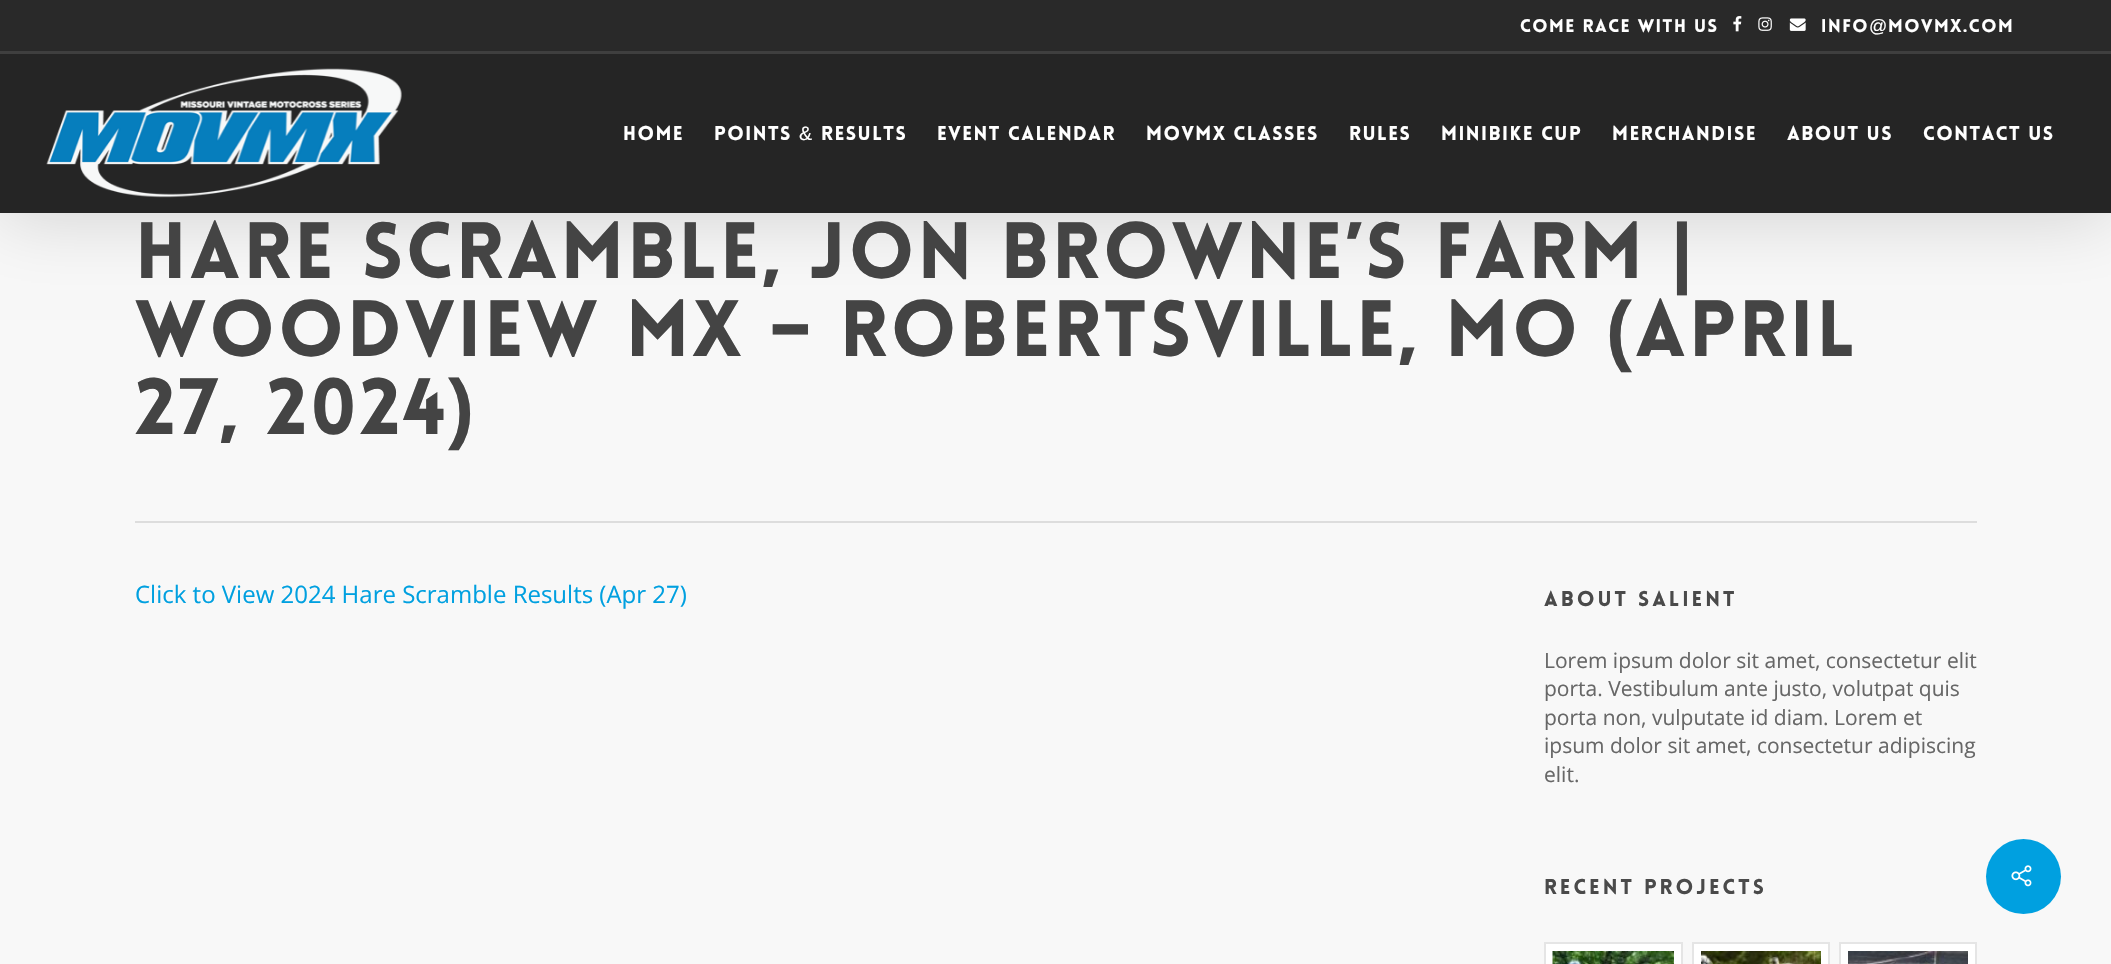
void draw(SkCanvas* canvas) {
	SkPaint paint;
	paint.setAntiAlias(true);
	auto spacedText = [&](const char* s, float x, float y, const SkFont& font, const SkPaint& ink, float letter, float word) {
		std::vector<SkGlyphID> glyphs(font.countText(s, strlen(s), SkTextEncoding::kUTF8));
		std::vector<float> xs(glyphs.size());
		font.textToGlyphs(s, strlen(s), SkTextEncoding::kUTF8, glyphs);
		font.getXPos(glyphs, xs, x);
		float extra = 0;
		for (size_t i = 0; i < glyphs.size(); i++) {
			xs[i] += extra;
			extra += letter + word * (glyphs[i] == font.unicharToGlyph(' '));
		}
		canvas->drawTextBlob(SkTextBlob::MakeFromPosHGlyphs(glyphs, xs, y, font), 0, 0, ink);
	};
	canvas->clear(0xfff8f8f8);
	paint.setColor(0x26000000);
	paint.setMaskFilter(SkMaskFilter::MakeBlur(kNormal_SkBlurStyle, 34));
	canvas->drawRect(SkRect::MakeXYWH(0, 5, 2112, 213), paint);
	paint.setMaskFilter(nullptr);
	paint.setColor(0xff292929);
	canvas->drawRect(SkRect::MakeXYWH(0, 0, 2111, 51), paint);
	paint.setColor(0xff3f3f3f);
	canvas->drawRect(SkRect::MakeXYWH(0, 51, 2111, 3), paint);
	SkFont f1(fontMgr->matchFamilyStyle("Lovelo", SkFontStyle(900, SkFontStyle::kNormal_Width, SkFontStyle::kUpright_Slant)), 18);
	f1.setSubpixel(true);
	paint.setColor(0xffffffff);
	spacedText("Come Race With Us", 1520, 32, f1, paint, 1.5, 0);
	canvas->drawImageRect(SkImages::DeferredFromEncodedData(SkData::MakeFromFileName("img1.png")), SkRect::MakeXYWH(1733, 16, 9, 16), SkSamplingOptions());
	canvas->drawImageRect(SkImages::DeferredFromEncodedData(SkData::MakeFromFileName("img2.png")), SkRect::MakeXYWH(1758, 17, 14, 14), SkSamplingOptions());
	canvas->drawImageRect(SkImages::DeferredFromEncodedData(SkData::MakeFromFileName("img3.png")), SkRect::MakeXYWH(1789, 18, 17, 13), SkSamplingOptions());
	spacedText("info", 1821, 32, f1, paint, 1.5, 0);
	SkFont f2(fontMgr->matchFamilyStyle("Liberation Sans", SkFontStyle::Normal()), 18);
	f2.setSubpixel(true);
	spacedText("@", 1869, 32, f2, paint, 1.5, 0);
	spacedText("movmx.com", 1888, 32, f1, paint, 1.5, 0);
	paint.setColor(0xff252525);
	canvas->drawRect(SkRect::MakeXYWH(0, 54, 2111, 159), paint);
	canvas->drawImageRect(SkImages::DeferredFromEncodedData(SkData::MakeFromFileName("img4.png")), SkRect::MakeXYWH(46, 68, 356, 130), SkSamplingOptions());
	SkFont f3(fontMgr->matchFamilyStyle("Lovelo", SkFontStyle(900, SkFontStyle::kNormal_Width, SkFontStyle::kUpright_Slant)), 19.5);
	f3.setSubpixel(true);
	paint.setColor(0xffffffff);
	spacedText("Home", 623, 140, f3, paint, 1.5, 0);
	spacedText("Points", 714, 140, f3, paint, 1.5, 0);
	SkFont f4(fontMgr->matchFamilyStyle("Liberation Sans", SkFontStyle::Normal()), 19.5);
	f4.setSubpixel(true);
	spacedText("&", 799, 140, f4, paint, 1.5, 0);
	spacedText("Results", 821, 140, f3, paint, 1.5, 0);
	spacedText("EVENT CALENDAR", 937, 140, f3, paint, 1.5, 0);
	spacedText("MOVMX Classes", 1146, 140, f3, paint, 1.5, 0);
	spacedText("RULES", 1349, 140, f3, paint, 1.5, 0);
	spacedText("MINIBIKE CUP", 1441, 140, f3, paint, 1.5, 0);
	spacedText("MERCHANDISE", 1612, 140, f3, paint, 1.5, 0);
	spacedText("ABOUT US", 1787, 140, f3, paint, 1.5, 0);
	spacedText("CONTACT US", 1923, 140, f3, paint, 1.5, 0);
	paint.setColor(0xffdddddd);
	canvas->drawRect(SkRect::MakeXYWH(135, 521, 1842, 2), paint);
	SkFont f5(fontMgr->matchFamilyStyle("Lovelo", SkFontStyle(900, SkFontStyle::kNormal_Width, SkFontStyle::kUpright_Slant)), 78);
	f5.setSubpixel(true);
	paint.setColor(0xff444444);
	spacedText("Hare Scramble, Jon Browne’s Farm", 135, 278, f5, paint, 3, 0);
	SkFont f6(fontMgr->matchFamilyStyle("Liberation Sans", SkFontStyle::Bold()), 78);
	f6.setSubpixel(true);
	spacedText("|", 1671, 278, f6, paint, 3, 0);
	spacedText("Woodview MX – Robertsville, MO", 135, 356, f5, paint, 3, 0);
	spacedText("(", 1606, 356, f6, paint, 3, 0);
	spacedText("April", 1635, 356, f5, paint, 3, 0);
	spacedText("27, 2024", 135, 434, f5, paint, 3, 0);
	spacedText(")", 448, 434, f6, paint, 3, 0);
	SkFont f7(fontMgr->matchFamilyStyle("Open Sans", SkFontStyle::Normal()), 24);
	f7.setSubpixel(true);
	paint.setColor(0xff00a0e0);
	canvas->drawString("Click to View 2024 Hare Scramble Results (Apr 27)", 135, 603, f7, paint);
	SkFont f8(fontMgr->matchFamilyStyle("Lovelo", SkFontStyle(900, SkFontStyle::kNormal_Width, SkFontStyle::kUpright_Slant)), 21);
	f8.setSubpixel(true);
	paint.setColor(0xff4a4a4a);
	spacedText("About Salient", 1544, 606, f8, paint, 3, 0);
	SkFont f9(fontMgr->matchFamilyStyle("Open Sans", SkFontStyle::Normal()), 21);
	f9.setSubpixel(true);
	paint.setColor(0xff676767);
	canvas->drawString("Lorem ipsum dolor sit amet, consectetur elit", 1544, 668, f9, paint);
	canvas->drawString("porta. Vestibulum ante justo, volutpat quis", 1544, 696, f9, paint);
	canvas->drawString("porta non, vulputate id diam. Lorem et", 1544, 725, f9, paint);
	canvas->drawString("ipsum dolor sit amet, consectetur adipiscing", 1544, 753, f9, paint);
	canvas->drawString("elit.", 1544, 782, f9, paint);
	paint.setColor(0xff4a4a4a);
	spacedText("Recent Projects", 1544, 894, f8, paint, 3, 0);
	paint.setColor(0xffffffff);
	canvas->drawRect(SkRect::MakeXYWH(1545, 943, 137, 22), paint);
	paint.setStroke(true);
	paint.setStrokeWidth(2);
	paint.setColor(0xffe5e5e5);
	canvas->drawRect(SkRect::MakeXYWH(1545, 943, 137, 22), paint);
	canvas->drawImageRect(SkImages::DeferredFromEncodedData(SkData::MakeFromFileName("img5.png")), SkRect::MakeXYWH(1552, 951, 122, 13), SkSamplingOptions());
	paint.setStroke(false);
	paint.setColor(0xffffffff);
	canvas->drawRect(SkRect::MakeXYWH(1693, 943, 136, 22), paint);
	paint.setStroke(true);
	paint.setColor(0xffe5e5e5);
	canvas->drawRect(SkRect::MakeXYWH(1693, 943, 136, 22), paint);
	canvas->drawImageRect(SkImages::DeferredFromEncodedData(SkData::MakeFromFileName("img6.png")), SkRect::MakeXYWH(1701, 951, 120, 13), SkSamplingOptions());
	paint.setStroke(false);
	paint.setColor(0xffffffff);
	canvas->drawRect(SkRect::MakeXYWH(1840, 943, 136, 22), paint);
	paint.setStroke(true);
	paint.setColor(0xffe5e5e5);
	canvas->drawRect(SkRect::MakeXYWH(1840, 943, 136, 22), paint);
	canvas->drawImageRect(SkImages::DeferredFromEncodedData(SkData::MakeFromFileName("img7.png")), SkRect::MakeXYWH(1848, 951, 120, 13), SkSamplingOptions());
	paint.setStroke(false);
	paint.setColor(0xff00a0e0);
	canvas->drawCircle(2023.5, 876.5, 37.5, paint);
	canvas->drawImageRect(SkImages::DeferredFromEncodedData(SkData::MakeFromFileName("img8.png")), SkRect::MakeXYWH(2011, 865, 21, 22), SkSamplingOptions());
}
